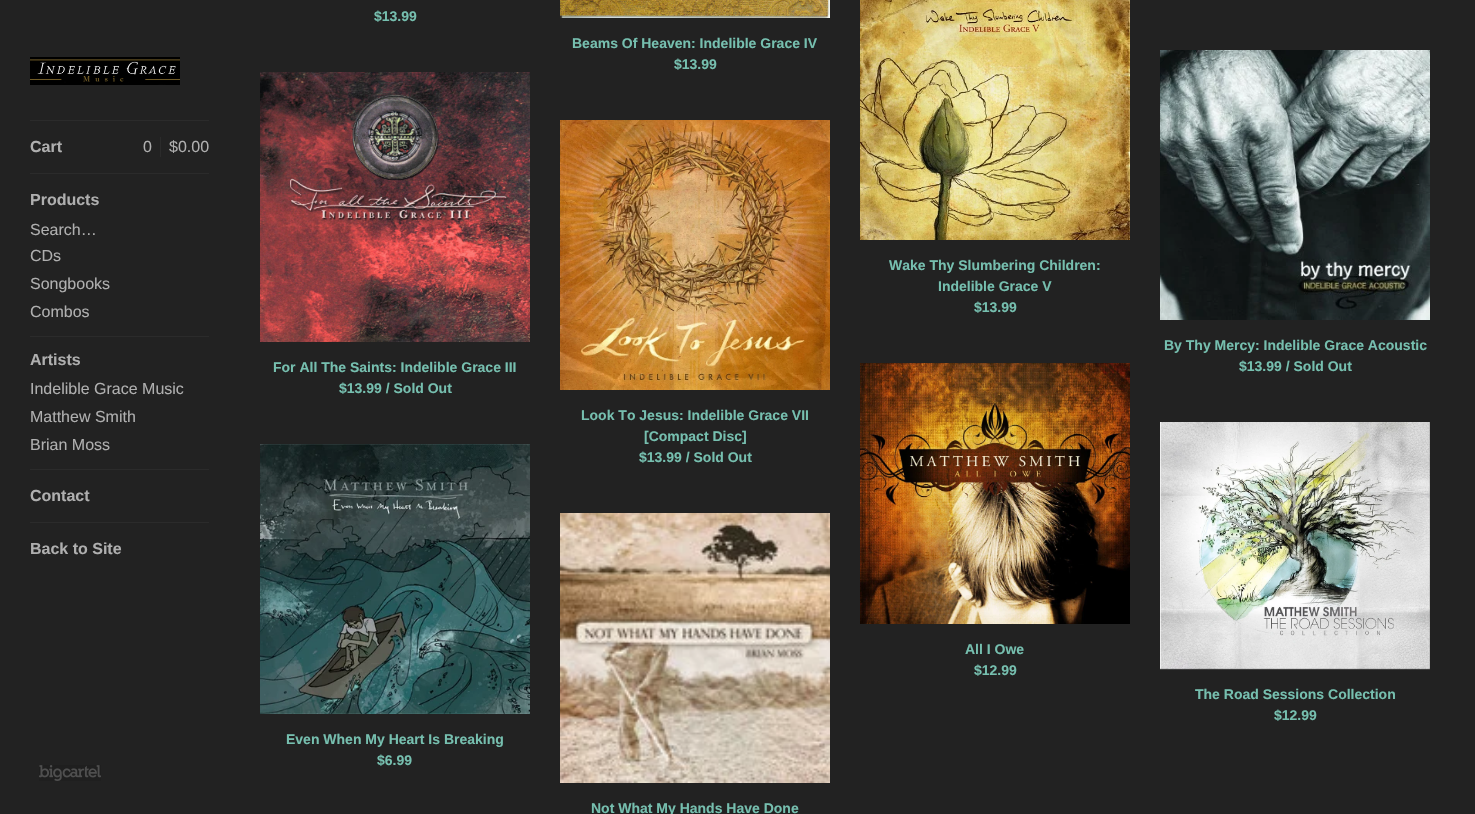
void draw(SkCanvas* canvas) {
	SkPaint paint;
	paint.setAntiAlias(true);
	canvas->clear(0xff222222);
	canvas->drawImageRect(SkImages::DeferredFromEncodedData(SkData::MakeFromFileName("img1.png")), SkRect::MakeXYWH(30, 57, 150, 28), SkSamplingOptions());
	paint.setColor(0xff2b2b2b);
	canvas->drawRect(SkRect::MakeXYWH(30, 120, 179, 1), paint);
	SkFont f1(fontMgr->matchFamilyStyle("Liberation Sans", SkFontStyle::Bold()), 16);
	f1.setSubpixel(true);
	paint.setColor(0xffafafaf);
	canvas->drawString("Cart", 30, 152, f1, paint);
	SkFont f2(fontMgr->matchFamilyStyle("Liberation Sans", SkFontStyle::Normal()), 16);
	f2.setSubpixel(true);
	canvas->drawString("0", 143, 152, f2, paint);
	paint.setColor(0xff2b2b2b);
	canvas->drawRect(SkRect::MakeXYWH(160, 137, 1, 20), paint);
	paint.setColor(0xffafafaf);
	canvas->drawString("$0.00", 169, 152, f2, paint);
	paint.setColor(0xff2b2b2b);
	canvas->drawRect(SkRect::MakeXYWH(30, 173, 179, 1), paint);
	paint.setColor(0xffafafaf);
	canvas->drawString("Products", 30, 205, f1, paint);
	canvas->drawString("Search…", 30, 235, f2, paint);
	canvas->drawString("CDs", 30, 261, f2, paint);
	canvas->drawString("Songbooks", 30, 289, f2, paint);
	canvas->drawString("Combos", 30, 317, f2, paint);
	paint.setColor(0xff2b2b2b);
	canvas->drawRect(SkRect::MakeXYWH(30, 336, 179, 1), paint);
	paint.setColor(0xffafafaf);
	canvas->drawString("Artists", 30, 365, f1, paint);
	canvas->drawString("Indelible Grace Music", 30, 394, f2, paint);
	canvas->drawString("Matthew Smith", 30, 422, f2, paint);
	canvas->drawString("Brian Moss", 30, 450, f2, paint);
	paint.setColor(0xff2b2b2b);
	canvas->drawRect(SkRect::MakeXYWH(30, 469, 179, 1), paint);
	paint.setColor(0xffafafaf);
	canvas->drawString("Contact", 30, 501, f1, paint);
	paint.setColor(0xff2b2b2b);
	canvas->drawRect(SkRect::MakeXYWH(30, 522, 179, 1), paint);
	paint.setColor(0xffafafaf);
	canvas->drawString("Back to Site", 30, 554, f1, paint);
	canvas->drawImageRect(SkImages::DeferredFromEncodedData(SkData::MakeFromFileName("img2.png")), SkRect::MakeXYWH(39, 765, 62, 16), SkSamplingOptions());
	SkFont f3(fontMgr->matchFamilyStyle("Liberation Sans", SkFontStyle::Bold()), 14);
	f3.setSubpixel(true);
	paint.setColor(0xff76bfaf);
	canvas->drawString("$13.99", 374, 21, f3, paint);
	canvas->drawImageRect(SkImages::DeferredFromEncodedData(SkData::MakeFromFileName("img3.png")), SkRect::MakeXYWH(560, 0, 270, 18), SkSamplingOptions());
	canvas->drawString("Beams Of Heaven: Indelible Grace IV", 572, 48, f3, paint);
	canvas->drawString("$13.99", 674, 69, f3, paint);
	canvas->drawImageRect(SkImages::DeferredFromEncodedData(SkData::MakeFromFileName("img4.png")), SkRect::MakeXYWH(860, 0, 270, 240), SkSamplingOptions());
	canvas->drawString("Wake Thy Slumbering Children:", 889, 270, f3, paint);
	canvas->drawString("Indelible Grace V", 938, 291, f3, paint);
	canvas->drawString("$13.99", 974, 312, f3, paint);
	canvas->drawImageRect(SkImages::DeferredFromEncodedData(SkData::MakeFromFileName("img5.png")), SkRect::MakeXYWH(1160, 50, 270, 270), SkSamplingOptions());
	canvas->drawString("By Thy Mercy: Indelible Grace Acoustic", 1164, 350, f3, paint);
	canvas->drawString("$13.99 / Sold Out", 1239, 371, f3, paint);
	canvas->drawImageRect(SkImages::DeferredFromEncodedData(SkData::MakeFromFileName("img6.png")), SkRect::MakeXYWH(260, 72, 270, 270), SkSamplingOptions());
	canvas->drawString("For All The Saints: Indelible Grace III", 273, 372, f3, paint);
	canvas->drawString("$13.99 / Sold Out", 339, 393, f3, paint);
	canvas->drawImageRect(SkImages::DeferredFromEncodedData(SkData::MakeFromFileName("img7.png")), SkRect::MakeXYWH(560, 120, 270, 270), SkSamplingOptions());
	canvas->drawString("Look To Jesus: Indelible Grace VII", 581, 420, f3, paint);
	canvas->drawString("[Compact Disc]", 644, 441, f3, paint);
	canvas->drawString("$13.99 / Sold Out", 639, 462, f3, paint);
	canvas->drawImageRect(SkImages::DeferredFromEncodedData(SkData::MakeFromFileName("img8.png")), SkRect::MakeXYWH(860, 363, 270, 261), SkSamplingOptions());
	canvas->drawString("All I Owe", 965, 654, f3, paint);
	canvas->drawString("$12.99", 974, 675, f3, paint);
	canvas->drawImageRect(SkImages::DeferredFromEncodedData(SkData::MakeFromFileName("img9.png")), SkRect::MakeXYWH(1160, 422, 270, 248), SkSamplingOptions());
	canvas->drawString("The Road Sessions Collection", 1195, 699, f3, paint);
	canvas->drawString("$12.99", 1274, 720, f3, paint);
	canvas->drawImageRect(SkImages::DeferredFromEncodedData(SkData::MakeFromFileName("img10.png")), SkRect::MakeXYWH(260, 444, 270, 270), SkSamplingOptions());
	canvas->drawString("Even When My Heart Is Breaking", 286, 744, f3, paint);
	canvas->drawString("$6.99", 377, 765, f3, paint);
	canvas->drawImageRect(SkImages::DeferredFromEncodedData(SkData::MakeFromFileName("img11.png")), SkRect::MakeXYWH(560, 513, 270, 270), SkSamplingOptions());
	canvas->drawString("Not What My Hands Have Done", 591, 813, f3, paint);
}
